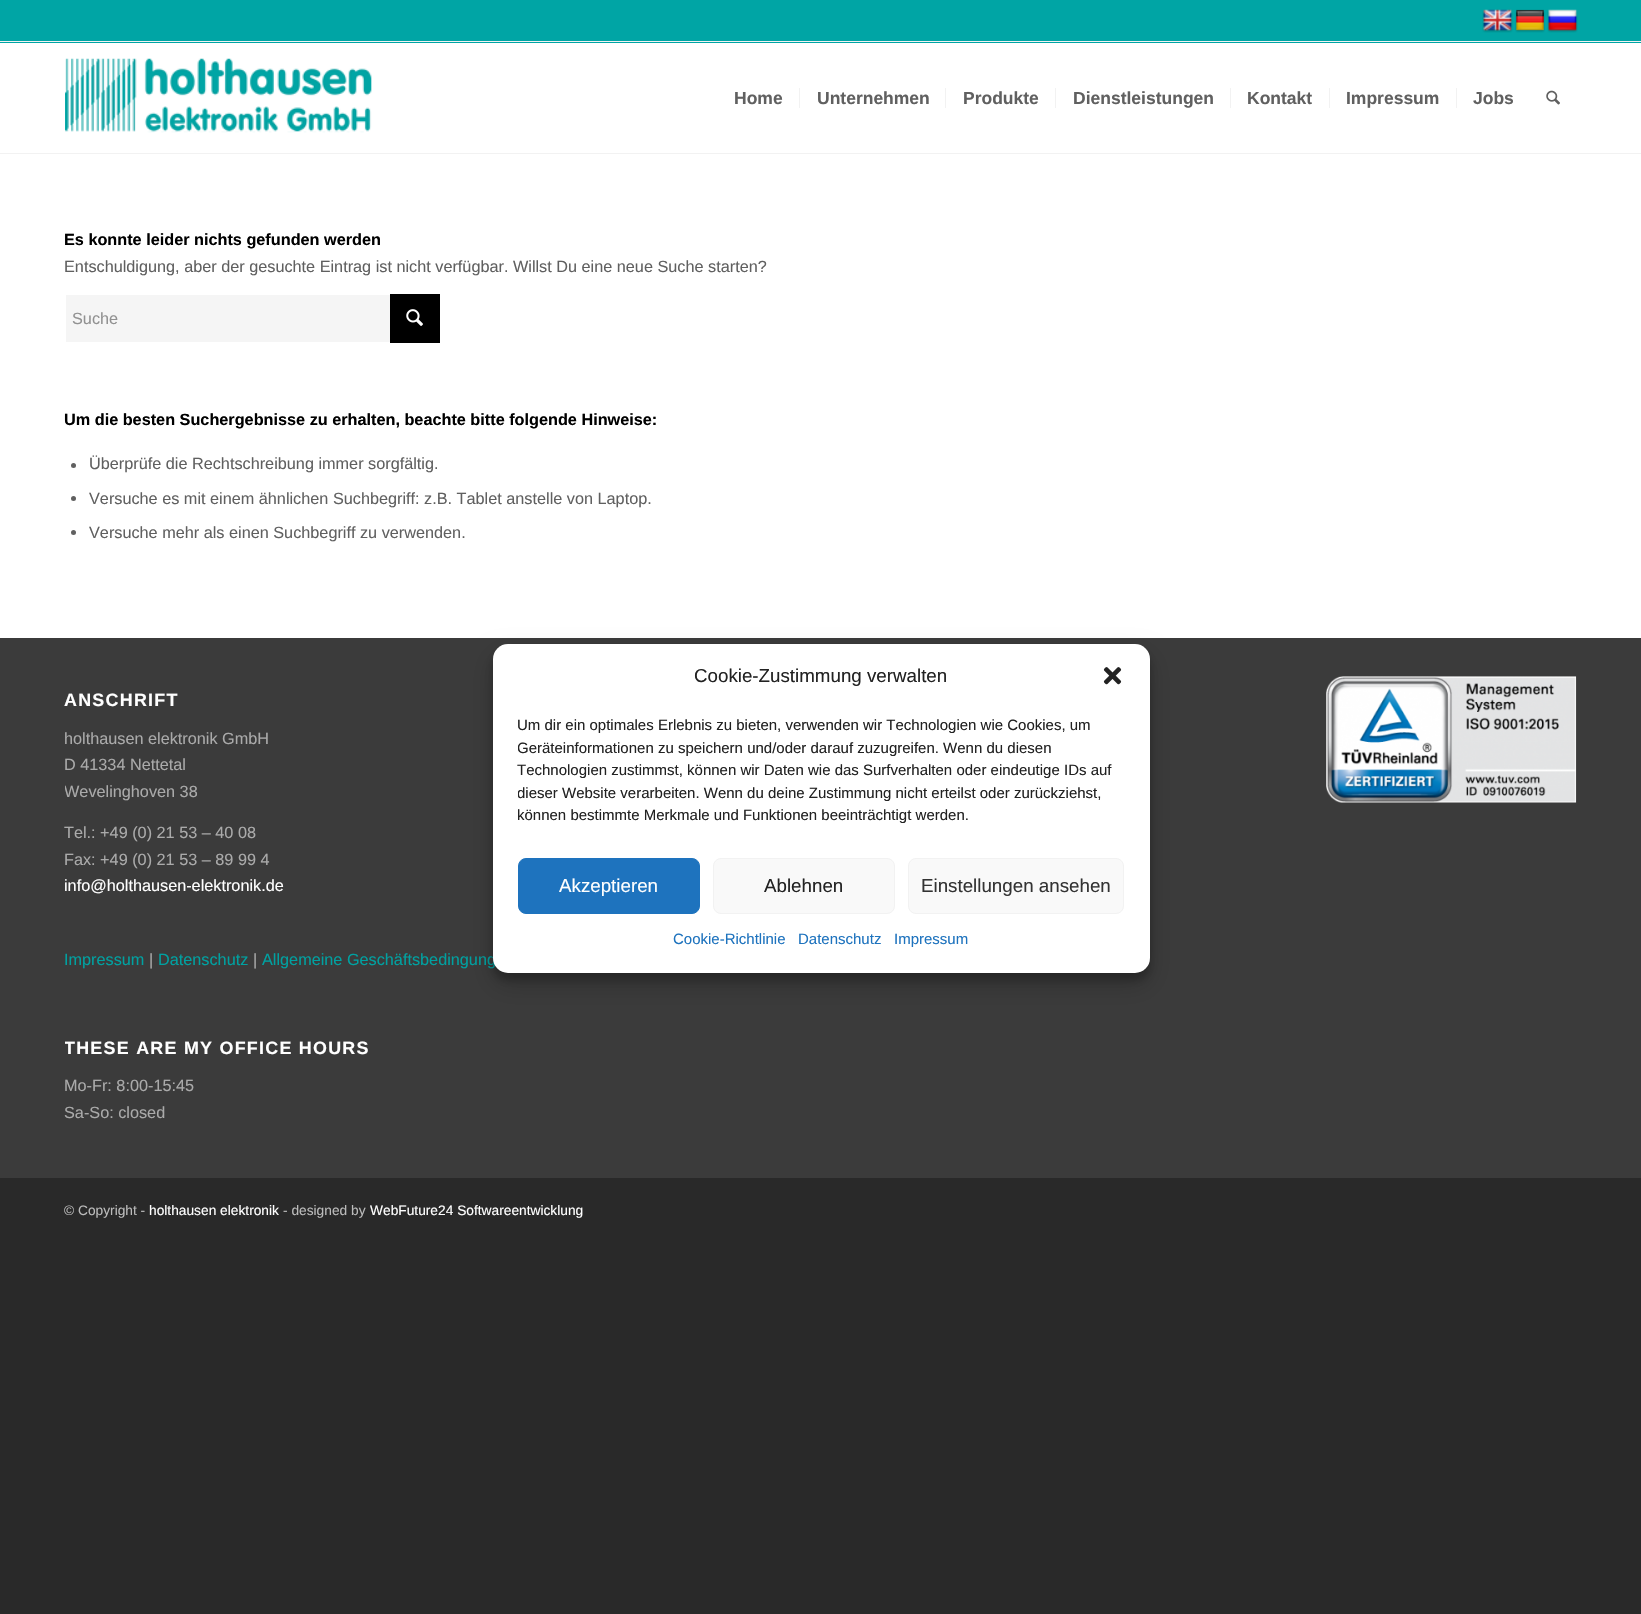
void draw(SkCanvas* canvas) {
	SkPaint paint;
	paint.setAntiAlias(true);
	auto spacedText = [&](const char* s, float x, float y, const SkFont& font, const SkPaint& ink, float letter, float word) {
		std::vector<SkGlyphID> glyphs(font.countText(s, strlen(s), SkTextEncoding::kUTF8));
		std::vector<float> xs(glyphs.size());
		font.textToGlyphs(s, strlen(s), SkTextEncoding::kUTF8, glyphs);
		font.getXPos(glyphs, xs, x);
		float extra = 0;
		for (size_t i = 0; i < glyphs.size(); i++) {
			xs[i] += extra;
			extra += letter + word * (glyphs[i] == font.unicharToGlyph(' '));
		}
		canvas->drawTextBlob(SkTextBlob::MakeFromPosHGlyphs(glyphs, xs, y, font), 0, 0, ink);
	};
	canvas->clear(0xff292929);
	paint.setColor(0xffffffff);
	canvas->drawRect(SkRect::MakeXYWH(0, 43, 1641, 595), paint);
	paint.setColor(0xff00a5a5);
	canvas->drawRect(SkRect::MakeXYWH(0, 0, 1641, 43), paint);
	paint.setColor(0xfff2f2f2);
	canvas->drawRect(SkRect::MakeXYWH(0, 41, 1641, 1), paint);
	canvas->drawImageRect(SkImages::DeferredFromEncodedData(SkData::MakeFromFileName("img1.png")), SkRect::MakeXYWH(1482, 9, 31, 24), SkSamplingOptions());
	canvas->drawImageRect(SkImages::DeferredFromEncodedData(SkData::MakeFromFileName("img2.png")), SkRect::MakeXYWH(1515, 9, 30, 24), SkSamplingOptions());
	canvas->drawImageRect(SkImages::DeferredFromEncodedData(SkData::MakeFromFileName("img3.png")), SkRect::MakeXYWH(1547, 9, 31, 24), SkSamplingOptions());
	canvas->drawRect(SkRect::MakeXYWH(0, 153, 1641, 1), paint);
	canvas->drawImageRect(SkImages::DeferredFromEncodedData(SkData::MakeFromFileName("img4.png")), SkRect::MakeXYWH(65, 58, 307, 75), SkSamplingOptions());
	SkFont f1(fontMgr->matchFamilyStyle("Liberation Sans", SkFontStyle::Bold()), 17.5);
	f1.setSubpixel(true);
	paint.setColor(0xff606060);
	canvas->drawString("Home", 734, 104, f1, paint);
	canvas->drawString("Unternehmen", 817, 104, f1, paint);
	paint.setColor(0xfff2f2f2);
	canvas->drawRect(SkRect::MakeXYWH(799, 88, 1, 20), paint);
	paint.setColor(0xff606060);
	canvas->drawString("Produkte", 963, 104, f1, paint);
	paint.setColor(0xfff2f2f2);
	canvas->drawRect(SkRect::MakeXYWH(945, 88, 1, 20), paint);
	paint.setColor(0xff606060);
	canvas->drawString("Dienstleistungen", 1073, 104, f1, paint);
	paint.setColor(0xfff2f2f2);
	canvas->drawRect(SkRect::MakeXYWH(1055, 88, 1, 20), paint);
	paint.setColor(0xff606060);
	canvas->drawString("Kontakt", 1247, 104, f1, paint);
	paint.setColor(0xfff2f2f2);
	canvas->drawRect(SkRect::MakeXYWH(1230, 88, 1, 20), paint);
	paint.setColor(0xff606060);
	canvas->drawString("Impressum", 1346, 104, f1, paint);
	paint.setColor(0xfff2f2f2);
	canvas->drawRect(SkRect::MakeXYWH(1329, 88, 1, 20), paint);
	paint.setColor(0xff606060);
	canvas->drawString("Jobs", 1473, 104, f1, paint);
	paint.setColor(0xfff2f2f2);
	canvas->drawRect(SkRect::MakeXYWH(1456, 88, 1, 20), paint);
	canvas->drawImageRect(SkImages::DeferredFromEncodedData(SkData::MakeFromFileName("img5.png")), SkRect::MakeXYWH(1546, 90, 14, 15), SkSamplingOptions());
	SkFont f2(fontMgr->matchFamilyStyle("Liberation Sans", SkFontStyle::Bold()), 16.25);
	f2.setSubpixel(true);
	paint.setColor(0xff000000);
	canvas->drawString("Es konnte leider nichts gefunden werden", 64, 245, f2, paint);
	SkFont f3(fontMgr->matchFamilyStyle("Liberation Sans", SkFontStyle::Normal()), 16.25);
	f3.setSubpixel(true);
	paint.setColor(0xff606060);
	canvas->drawString("Entschuldigung, aber der gesuchte Eintrag ist nicht verfügbar. Willst Du eine neue Suche starten?", 64, 272, f3, paint);
	paint.setColor(0xfff5f5f5);
	canvas->drawRect(SkRect::MakeXYWH(66, 295, 324, 47), paint);
	paint.setColor(0xff919191);
	canvas->drawString("Suche", 72, 324, f3, paint);
	paint.setColor(0xff000000);
	canvas->drawRect(SkRect::MakeXYWH(390, 294, 50, 49), paint);
	canvas->drawImageRect(SkImages::DeferredFromEncodedData(SkData::MakeFromFileName("img6.png")), SkRect::MakeXYWH(406, 309, 17, 17), SkSamplingOptions());
	canvas->drawString("Um die besten Suchergebnisse zu erhalten, beachte bitte folgende Hinweise:", 64, 425, f2, paint);
	paint.setColor(0xff606060);
	canvas->drawCircle(73.5, 465.5, 2.5, paint);
	canvas->drawString("Überprüfe die Rechtschreibung immer sorgfältig.", 89, 469, f3, paint);
	canvas->drawCircle(73.5, 498.5, 2.5, paint);
	canvas->drawString("Versuche es mit einem ähnlichen Suchbegriff: z.B. Tablet anstelle von Laptop.", 89, 504, f3, paint);
	canvas->drawCircle(73.5, 532.5, 2.5, paint);
	canvas->drawString("Versuche mehr als einen Suchbegriff zu verwenden.", 89, 538, f3, paint);
	paint.setColor(0xff3b3b3b);
	canvas->drawRect(SkRect::MakeXYWH(0, 638, 1641, 540), paint);
	SkFont f4(fontMgr->matchFamilyStyle("Liberation Sans", SkFontStyle::Bold()), 17.9);
	f4.setSubpixel(true);
	paint.setColor(0xffffffff);
	spacedText("ANSCHRIFT", 64, 706, f4, paint, 1.25, 0);
	paint.setColor(0xffaaaaaa);
	canvas->drawString("holthausen elektronik GmbH", 64, 744, f3, paint);
	canvas->drawString("D 41334 Nettetal", 64, 770, f3, paint);
	canvas->save();
	canvas->clipRect(SkRect::MakeXYWH(65, 676, 710, 238));
	canvas->drawString("Wevelinghoven 38", 64, 797, f3, paint);
	canvas->restore();
	canvas->drawString("Tel.: +49 (0) 21 53 – 40 08", 64, 838, f3, paint);
	canvas->drawString("Fax: +49 (0) 21 53 – 89 99 4", 64, 865, f3, paint);
	paint.setColor(0xffffffff);
	canvas->drawString("info@holthausen-elektronik.de", 64, 891, f3, paint);
	paint.setColor(0xff00a1a1);
	canvas->drawString("Impressum", 64, 965, f3, paint);
	paint.setColor(0xffaaaaaa);
	canvas->drawString("|", 149, 965, f3, paint);
	paint.setColor(0xff00a1a1);
	canvas->drawString("Datenschutz", 158, 965, f3, paint);
	paint.setColor(0xffaaaaaa);
	canvas->drawString("|", 253, 965, f3, paint);
	paint.setColor(0xff00a1a1);
	canvas->drawString("Allgemeine Geschäftsbedingung", 262, 965, f3, paint);
	canvas->save();
	canvas->clipRect(SkRect::MakeXYWH(65, 1024, 710, 116));
	paint.setColor(0xffffffff);
	spacedText("THESE ARE MY OFFICE HOURS", 64, 1054, f4, paint, 1.25, 0);
	canvas->restore();
	paint.setColor(0xffaaaaaa);
	canvas->drawString("Mo-Fr: 8:00-15:45", 64, 1091, f3, paint);
	canvas->drawString("Sa-So: closed", 64, 1118, f3, paint);
	canvas->drawImageRect(SkImages::DeferredFromEncodedData(SkData::MakeFromFileName("img7.png")), SkRect::MakeXYWH(1326, 676, 251, 127), SkSamplingOptions());
	SkFont f5(fontMgr->matchFamilyStyle("Liberation Sans", SkFontStyle::Normal()), 13.75);
	f5.setSubpixel(true);
	paint.setColor(0xffbbbbbb);
	canvas->drawString("© Copyright -", 64, 1215, f5, paint);
	paint.setColor(0xffffffff);
	canvas->drawString("holthausen elektronik", 149, 1215, f5, paint);
	paint.setColor(0xffbbbbbb);
	canvas->drawString("- designed by", 283, 1215, f5, paint);
	paint.setColor(0xffffffff);
	canvas->drawString("WebFuture24 Softwareentwicklung", 370, 1215, f5, paint);
	paint.setColor(0x3b000000);
	paint.setMaskFilter(SkMaskFilter::MakeBlur(kNormal_SkBlurStyle, 4));
	canvas->drawRoundRect(SkRect::MakeXYWH(493, 651, 657, 329), 15, 15, paint);
	paint.setMaskFilter(nullptr);
	paint.setColor(0x30000000);
	paint.setMaskFilter(SkMaskFilter::MakeBlur(kNormal_SkBlurStyle, 12.5));
	canvas->drawRoundRect(SkRect::MakeXYWH(493, 656, 657, 329), 15, 15, paint);
	paint.setMaskFilter(nullptr);
	paint.setColor(0xffffffff);
	canvas->drawRoundRect(SkRect::MakeXYWH(493, 644, 657, 329), 15, 15, paint);
	SkFont f6(fontMgr->matchFamilyStyle("Liberation Sans", SkFontStyle::Normal()), 18.75);
	f6.setSubpixel(true);
	paint.setColor(0xff222222);
	canvas->drawString("Cookie-Zustimmung verwalten", 694, 682, f6, paint);
	canvas->drawImageRect(SkImages::DeferredFromEncodedData(SkData::MakeFromFileName("img8.png")), SkRect::MakeXYWH(1103, 667, 19, 18), SkSamplingOptions());
	SkFont f7(fontMgr->matchFamilyStyle("Liberation Sans", SkFontStyle::Normal()), 15);
	f7.setSubpixel(true);
	canvas->drawString("Um dir ein optimales Erlebnis zu bieten, verwenden wir Technologien wie Cookies, um", 517, 730, f7, paint);
	canvas->save();
	canvas->clipRect(SkRect::MakeXYWH(518, 714, 607, 119));
	canvas->drawString("Geräteinformationen zu speichern und/oder darauf zuzugreifen. Wenn du diesen", 517, 753, f7, paint);
	canvas->restore();
	canvas->drawString("Technologien zustimmst, können wir Daten wie das Surfverhalten oder eindeutige IDs auf", 517, 775, f7, paint);
	canvas->save();
	canvas->clipRect(SkRect::MakeXYWH(518, 714, 607, 119));
	canvas->drawString("dieser Website verarbeiten. Wenn du deine Zustimmung nicht erteilst oder zurückziehst,", 517, 798, f7, paint);
	canvas->drawString("können bestimmte Merkmale und Funktionen beeinträchtigt werden.", 517, 820, f7, paint);
	canvas->restore();
	paint.setColor(0xff1e73be);
	canvas->drawRoundRect(SkRect::MakeXYWH(518.5, 858.5, 181, 55), 7.5, 7.5, paint);
	paint.setStroke(true);
	paint.setStrokeWidth(1);
	canvas->drawRoundRect(SkRect::MakeXYWH(518.5, 858.5, 181, 55), 7.5, 7.5, paint);
	paint.setStroke(false);
	paint.setColor(0xffffffff);
	canvas->drawString("Akzeptieren", 559, 892, f6, paint);
	paint.setColor(0xfff9f9f9);
	canvas->drawRoundRect(SkRect::MakeXYWH(713.5, 858.5, 181, 55), 7.5, 7.5, paint);
	paint.setStroke(true);
	paint.setColor(0xfff2f2f2);
	canvas->drawRoundRect(SkRect::MakeXYWH(713.5, 858.5, 181, 55), 7.5, 7.5, paint);
	paint.setStroke(false);
	paint.setColor(0xff222222);
	canvas->drawString("Ablehnen", 764, 892, f6, paint);
	paint.setColor(0xfff9f9f9);
	canvas->drawRoundRect(SkRect::MakeXYWH(908.5, 858.5, 215, 55), 7.5, 7.5, paint);
	paint.setStroke(true);
	paint.setColor(0xfff2f2f2);
	canvas->drawRoundRect(SkRect::MakeXYWH(908.5, 858.5, 215, 55), 7.5, 7.5, paint);
	paint.setStroke(false);
	paint.setColor(0xff333333);
	canvas->drawString("Einstellungen ansehen", 921, 892, f6, paint);
	paint.setColor(0xff1e73be);
	canvas->drawString("Cookie-Richtlinie", 673, 944, f7, paint);
	canvas->drawString("Datenschutz", 798, 944, f7, paint);
	canvas->drawString("Impressum", 894, 944, f7, paint);
}
